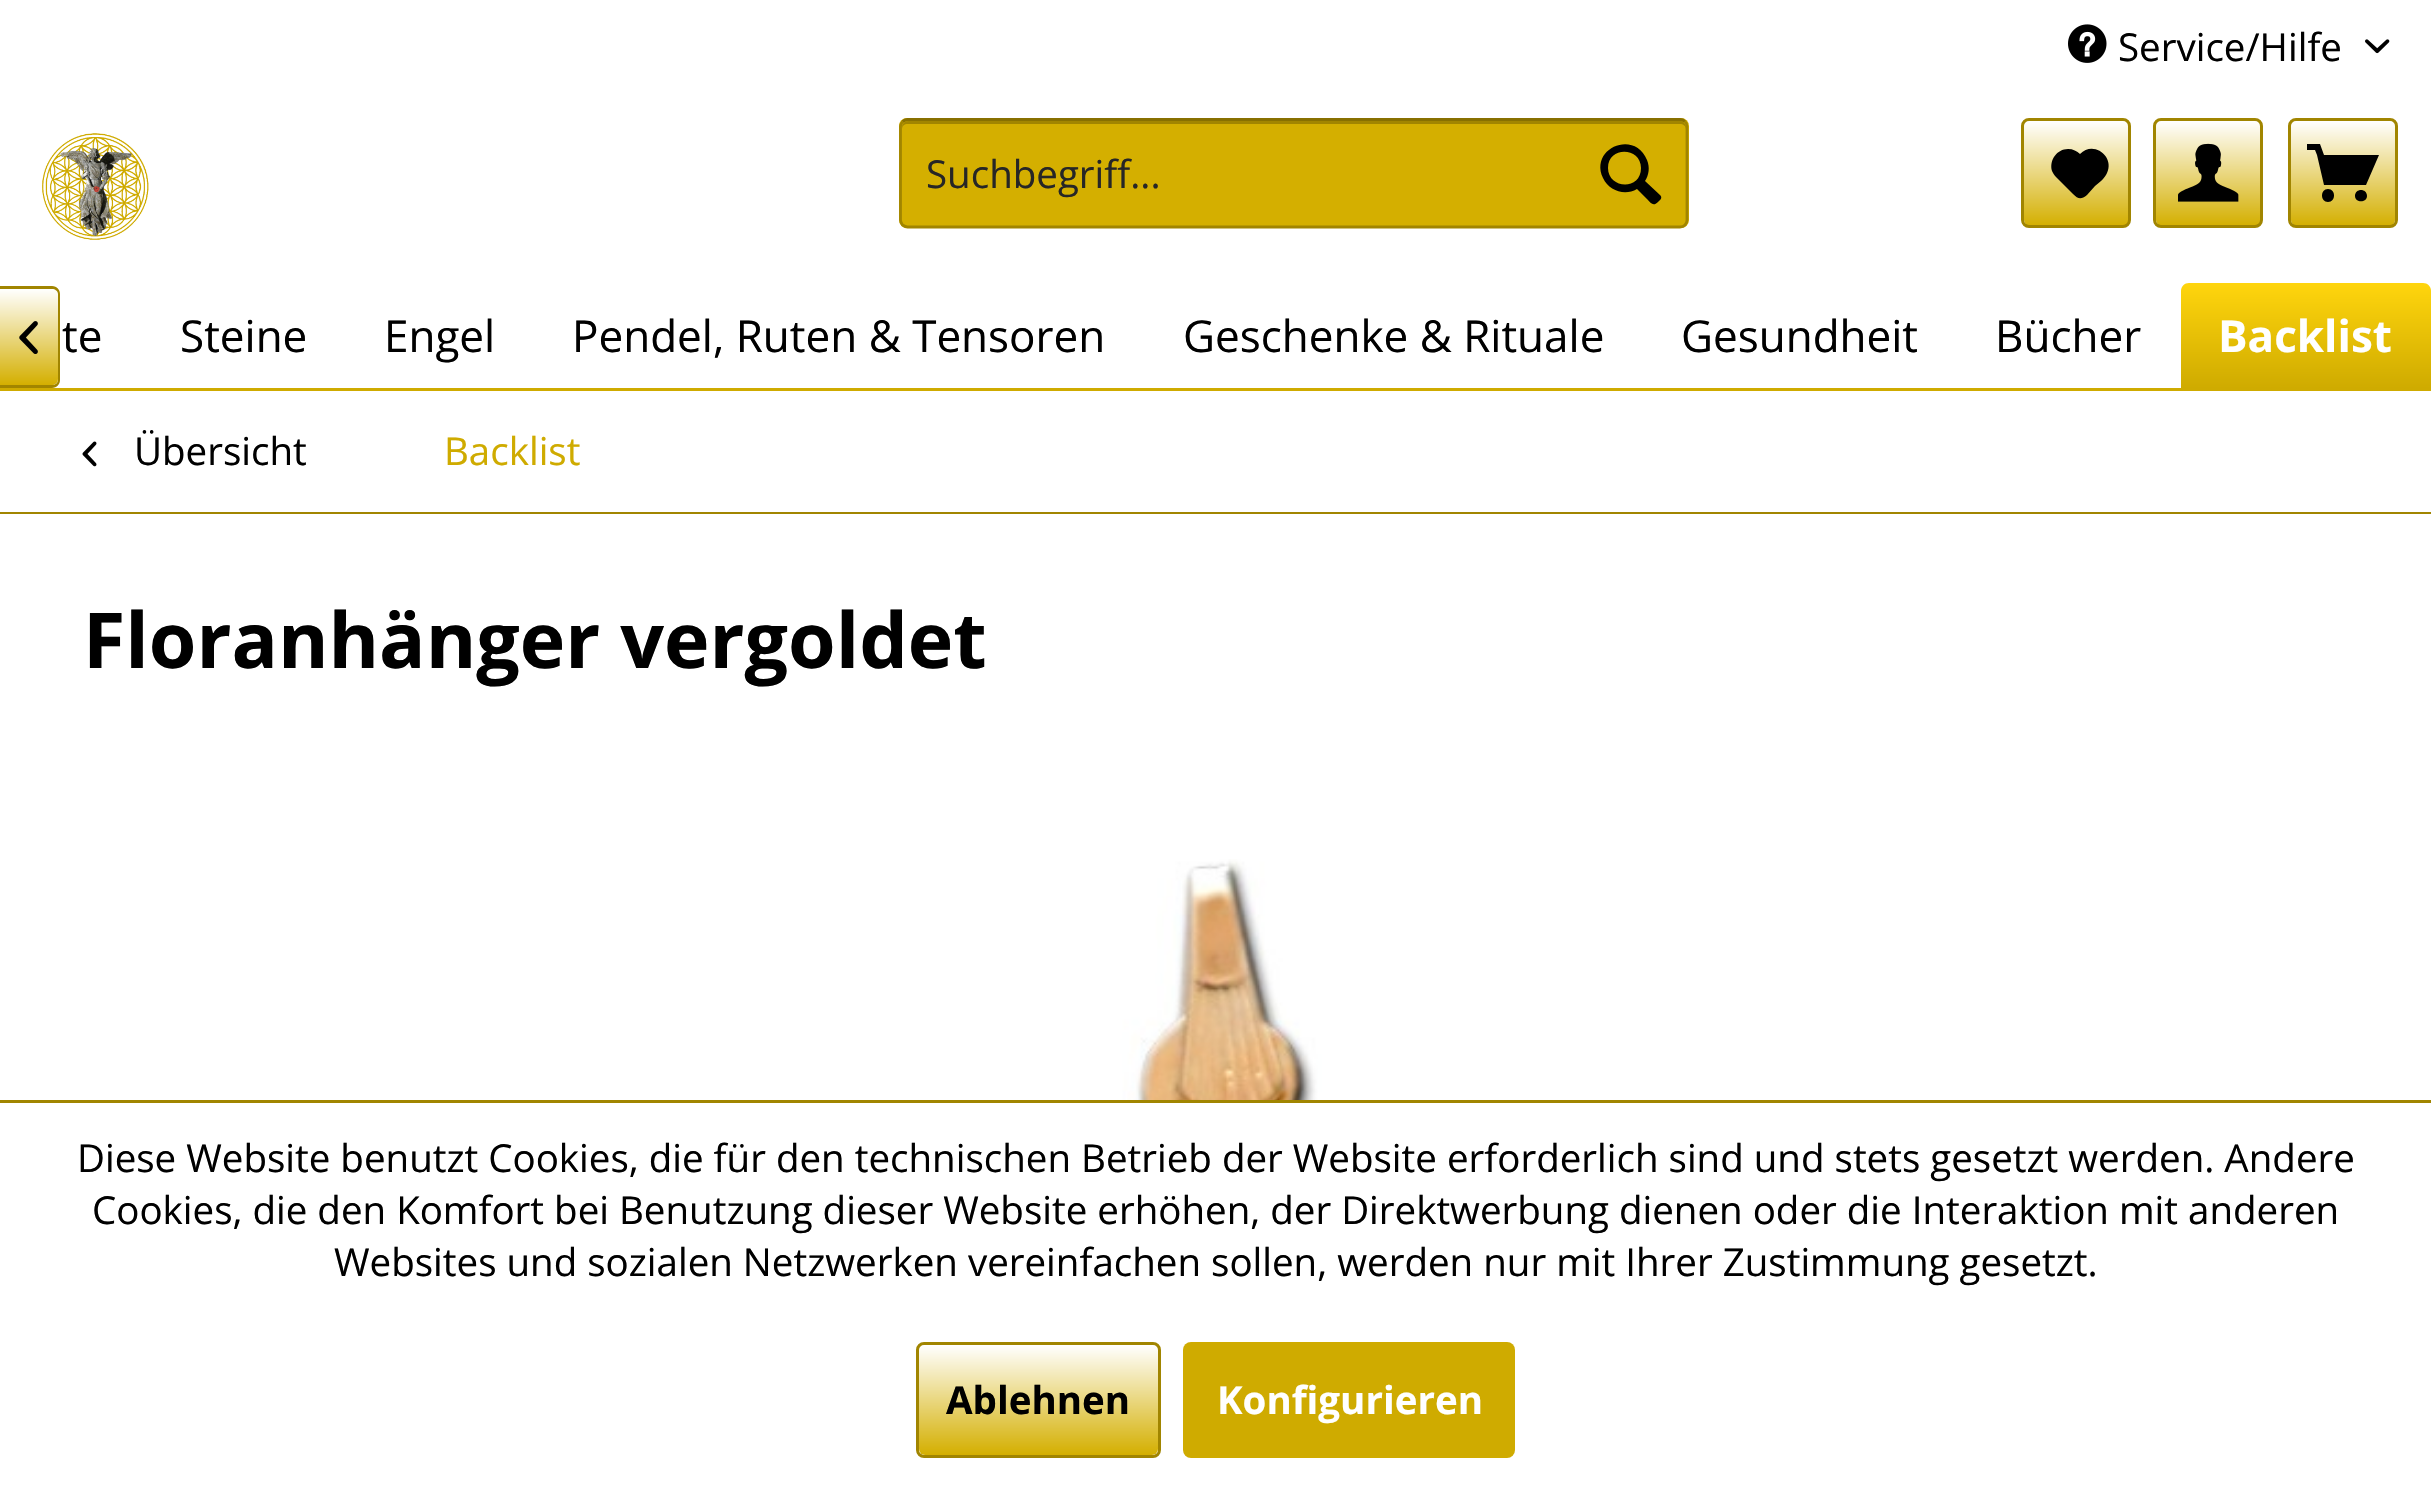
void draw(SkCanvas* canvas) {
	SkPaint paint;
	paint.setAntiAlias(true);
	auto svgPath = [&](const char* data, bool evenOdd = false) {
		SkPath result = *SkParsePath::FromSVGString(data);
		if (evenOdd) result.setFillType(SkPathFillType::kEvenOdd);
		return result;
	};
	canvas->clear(0xffffffff);
	canvas->drawImageRect(SkImages::DeferredFromEncodedData(SkData::MakeFromFileName("img1.png")), SkRect::MakeXYWH(2068, 24, 39, 39), SkSamplingOptions());
	SkFont f1(fontMgr->matchFamilyStyle("Open Sans", SkFontStyle::Normal()), 38.5);
	f1.setSubpixel(true);
	paint.setColor(0xff000000);
	canvas->drawString("Service/Hilfe", 2118, 61, f1, paint);
	canvas->drawImageRect(SkImages::DeferredFromEncodedData(SkData::MakeFromFileName("img2.png")), SkRect::MakeXYWH(2365, 39, 25, 15), SkSamplingOptions());
	canvas->drawImageRect(SkImages::DeferredFromEncodedData(SkData::MakeFromFileName("img3.png")), SkRect::MakeXYWH(42, 133, 107, 107), SkSamplingOptions());
	paint.setColor(0xffd4af00);
	canvas->drawRoundRect(SkRect::MakeXYWH(899, 118, 790, 110), 8, 8, paint);
	paint.setColor(0xffa18500);
	canvas->drawPath(svgPath("M908 124H1680C1683 124 1686 126 1686 129V127C1686 124 1683 121 1680 121H908C905 121 902 124 902 127V129C902 126 904 124 908 124Z"), paint);
	paint.setStroke(true);
	paint.setStrokeWidth(2.8);
	paint.setColor(0xff887000);
	canvas->drawPath(svgPath("M902.5 121.5C904 120.5 905.5 119.5 907.5 119.5H1680C1682 119.5 1684 120.5 1685 121.5"), paint);
	paint.setColor(0xffa18500);
	canvas->drawPath(svgPath("M1685 121.5C1686.5 123 1687 124.5 1687 126.5V220C1687 222 1686.5 223.5 1685 225C1684 226 1682 227 1680 227H907.5C905.5 227 904 226 902.5 225C901.5 223.5 900.5 222 900.5 220V126.5C900.5 124.5 901.5 123 902.5 121.5"), paint);
	paint.setStroke(false);
	paint.setColor(0xff262626);
	canvas->drawString("Suchbegriff...", 926, 188, f1, paint);
	paint.setColor(0xff000000);
	canvas->drawPath(svgPath("M1660 195L1645 181C1649 175 1650 167 1647 160C1635 129 1589 148 1603 178C1609 191 1625 196 1637 189L1647 199C1651 203 1653 207 1658 202C1660 200 1663 198 1660 195ZM1608 168C1608 146 1641 147 1641 168C1641 191 1608 189 1608 168Z"), paint);
	{
		const SkColor colors[] = {0xffffffff, 0xffd4af00};
		const float stops[] = {0, 1};
		const SkPoint ends[] = {{2076, 121}, {2076, 226}};
		paint.setShader(SkGradientShader::MakeLinear(ends, colors, stops, 2, SkTileMode::kClamp));
		paint.setAlpha(255);
	}
	canvas->drawRoundRect(SkRect::MakeXYWH(2024, 121, 105, 105), 6, 6, paint);
	paint.setStroke(true);
	paint.setStrokeWidth(3);
	paint.setShader(nullptr);
	paint.setColor(0xffa18500);
	canvas->drawRoundRect(SkRect::MakeXYWH(2022.5, 119.5, 107, 107), 6.5, 6.5, paint);
	paint.setStroke(false);
	paint.setColor(0xff000000);
	canvas->drawPath(svgPath("M2068 149C2057 149 2049 160 2052 171C2053 173 2054 175 2056 177L2073 194C2078 199 2081 200 2087 195L2095 186C2100 182 2105 178 2107 173C2115 156 2093 140 2080 154C2077 151 2073 149 2068 149Z"), paint);
	{
		const SkColor colors[] = {0xffffffff, 0xffd4af00};
		const float stops[] = {0, 1};
		const SkPoint ends[] = {{2208, 121}, {2208, 226}};
		paint.setShader(SkGradientShader::MakeLinear(ends, colors, stops, 2, SkTileMode::kClamp));
		paint.setAlpha(255);
	}
	canvas->drawRoundRect(SkRect::MakeXYWH(2156, 121, 105, 105), 6, 6, paint);
	paint.setStroke(true);
	paint.setShader(nullptr);
	paint.setColor(0xffa18500);
	canvas->drawRoundRect(SkRect::MakeXYWH(2154.5, 119.5, 107, 107), 6.5, 6.5, paint);
	canvas->drawImageRect(SkImages::DeferredFromEncodedData(SkData::MakeFromFileName("img4.png")), SkRect::MakeXYWH(2178, 143, 61, 59), SkSamplingOptions());
	paint.setStroke(false);
	{
		const SkColor colors[] = {0xffffffff, 0xffd4af00};
		const float stops[] = {0, 1};
		const SkPoint ends[] = {{2343, 121}, {2343, 226}};
		paint.setShader(SkGradientShader::MakeLinear(ends, colors, stops, 2, SkTileMode::kClamp));
		paint.setAlpha(255);
	}
	canvas->drawRoundRect(SkRect::MakeXYWH(2291, 121, 104, 105), 6, 6, paint);
	paint.setStroke(true);
	paint.setShader(nullptr);
	paint.setColor(0xffa18500);
	canvas->drawRoundRect(SkRect::MakeXYWH(2289.5, 119.5, 107, 107), 6.5, 6.5, paint);
	paint.setStroke(false);
	paint.setColor(0xff000000);
	canvas->drawPath(svgPath("M2324 185H2366L2379 155H2324L2320 144H2307V150H2315L2317 155ZM2328 189C2320 189 2320 202 2328 202C2336 202 2336 189 2328 189ZM2367 196C2367 203 2355 203 2355 196C2355 188 2367 188 2367 196Z"), paint);
	paint.setColor(0xffcfab00);
	canvas->drawRect(SkRect::MakeXYWH(0, 388, 2431, 3), paint);
	{
		const SkColor colors[] = {0xffffffff, 0xffd4af00};
		const float stops[] = {0, 1};
		const SkPoint ends[] = {{29, 289}, {29, 385}};
		paint.setShader(SkGradientShader::MakeLinear(ends, colors, stops, 2, SkTileMode::kClamp));
		paint.setAlpha(255);
	}
	canvas->drawPath(svgPath("M0 289H52C55.5 289 58 291.5 58 295V379C58 382.5 55.5 385 52 385H0Z"), paint);
	paint.setShader(nullptr);
	paint.setColor(0xffa18500);
	canvas->drawPath(svgPath("M0 286H52C57 286 60 290 60 294V380C60 384 57 388 52 388H0ZM0 289H52C55 289 58 291 58 294V380C58 383 55 385 52 385H0Z", true), paint);
	canvas->drawImageRect(SkImages::DeferredFromEncodedData(SkData::MakeFromFileName("img5.png")), SkRect::MakeXYWH(19, 321, 19, 33), SkSamplingOptions());
	SkFont f2(fontMgr->matchFamilyStyle("Open Sans", SkFontStyle::Normal()), 44);
	f2.setSubpixel(true);
	paint.setColor(0xff000000);
	canvas->drawString("te", 62, 352, f2, paint);
	canvas->drawString("Steine", 180, 352, f2, paint);
	canvas->drawString("Engel", 384, 352, f2, paint);
	canvas->drawString("Pendel, Ruten & Tensoren", 572, 352, f2, paint);
	canvas->drawString("Geschenke & Rituale", 1183, 352, f2, paint);
	canvas->drawString("Gesundheit", 1681, 352, f2, paint);
	canvas->drawString("Bücher", 1995, 352, f2, paint);
	{
		const SkColor colors[] = {0xffffd50d, 0xffcfab00};
		const float stops[] = {0, 1};
		const SkPoint ends[] = {{2306, 283}, {2306, 388}};
		paint.setShader(SkGradientShader::MakeLinear(ends, colors, stops, 2, SkTileMode::kClamp));
		paint.setAlpha(255);
	}
	canvas->drawPath(svgPath("M2189 283H2423C2427.5 283 2431 286.5 2431 291V388H2181V291C2181 286.5 2184.5 283 2189 283Z"), paint);
	SkFont f3(fontMgr->matchFamilyStyle("Open Sans", SkFontStyle::Bold()), 44);
	f3.setSubpixel(true);
	paint.setShader(nullptr);
	paint.setColor(0xffffffff);
	canvas->drawString("Backlist", 2218, 352, f3, paint);
	paint.setColor(0xffa18500);
	canvas->drawRect(SkRect::MakeXYWH(0, 512, 2431, 2), paint);
	canvas->drawImageRect(SkImages::DeferredFromEncodedData(SkData::MakeFromFileName("img6.png")), SkRect::MakeXYWH(82, 441, 15, 26), SkSamplingOptions());
	paint.setColor(0xff000000);
	canvas->drawString("Übersicht", 134, 465, f1, paint);
	paint.setColor(0xffcfab00);
	canvas->drawString("Backlist", 444, 465, f1, paint);
	SkFont f4(fontMgr->matchFamilyStyle("Open Sans", SkFontStyle::Bold()), 77);
	f4.setSubpixel(true);
	paint.setColor(0xff000000);
	canvas->drawString("Floranhänger vergoldet", 83, 668, f4, paint);
	canvas->drawImageRect(SkImages::DeferredFromEncodedData(SkData::MakeFromFileName("img7.png")), SkRect::MakeXYWH(807, 859, 814, 241), SkSamplingOptions());
	paint.setColor(0xffa18500);
	canvas->drawRect(SkRect::MakeXYWH(0, 1100, 2431, 3), paint);
	paint.setColor(0xff000000);
	canvas->drawString("Diese Website benutzt Cookies, die für den technischen Betrieb der Website erforderlich sind und stets gesetzt werden. Andere", 77, 1172, f1, paint);
	canvas->drawString("Cookies, die den Komfort bei Benutzung dieser Website erhöhen, der Direktwerbung dienen oder die Interaktion mit anderen", 92, 1224, f1, paint);
	canvas->drawString("Websites und sozialen Netzwerken vereinfachen sollen, werden nur mit Ihrer Zustimmung gesetzt.", 334, 1276, f1, paint);
	{
		const SkColor colors[] = {0xffffffff, 0xffd4af00};
		const float stops[] = {0, 1};
		const SkPoint ends[] = {{1038, 1345}, {1038, 1455}};
		paint.setShader(SkGradientShader::MakeLinear(ends, colors, stops, 2, SkTileMode::kClamp));
		paint.setAlpha(255);
	}
	canvas->drawRoundRect(SkRect::MakeXYWH(919, 1345, 239, 110), 6, 6, paint);
	paint.setStroke(true);
	paint.setShader(nullptr);
	paint.setColor(0xffa18500);
	canvas->drawRoundRect(SkRect::MakeXYWH(917.5, 1343.5, 242, 113), 6.5, 6.5, paint);
	SkFont f5(fontMgr->matchFamilyStyle("Open Sans", SkFontStyle::Bold()), 38.5);
	f5.setSubpixel(true);
	paint.setStroke(false);
	paint.setColor(0xff000000);
	canvas->drawString("Ablehnen", 946, 1414, f5, paint);
	paint.setColor(0xffcfab00);
	canvas->drawRoundRect(SkRect::MakeXYWH(1183, 1342, 332, 116), 8, 8, paint);
	paint.setColor(0xffffffff);
	canvas->drawString("Konfigurieren", 1217, 1414, f5, paint);
}
